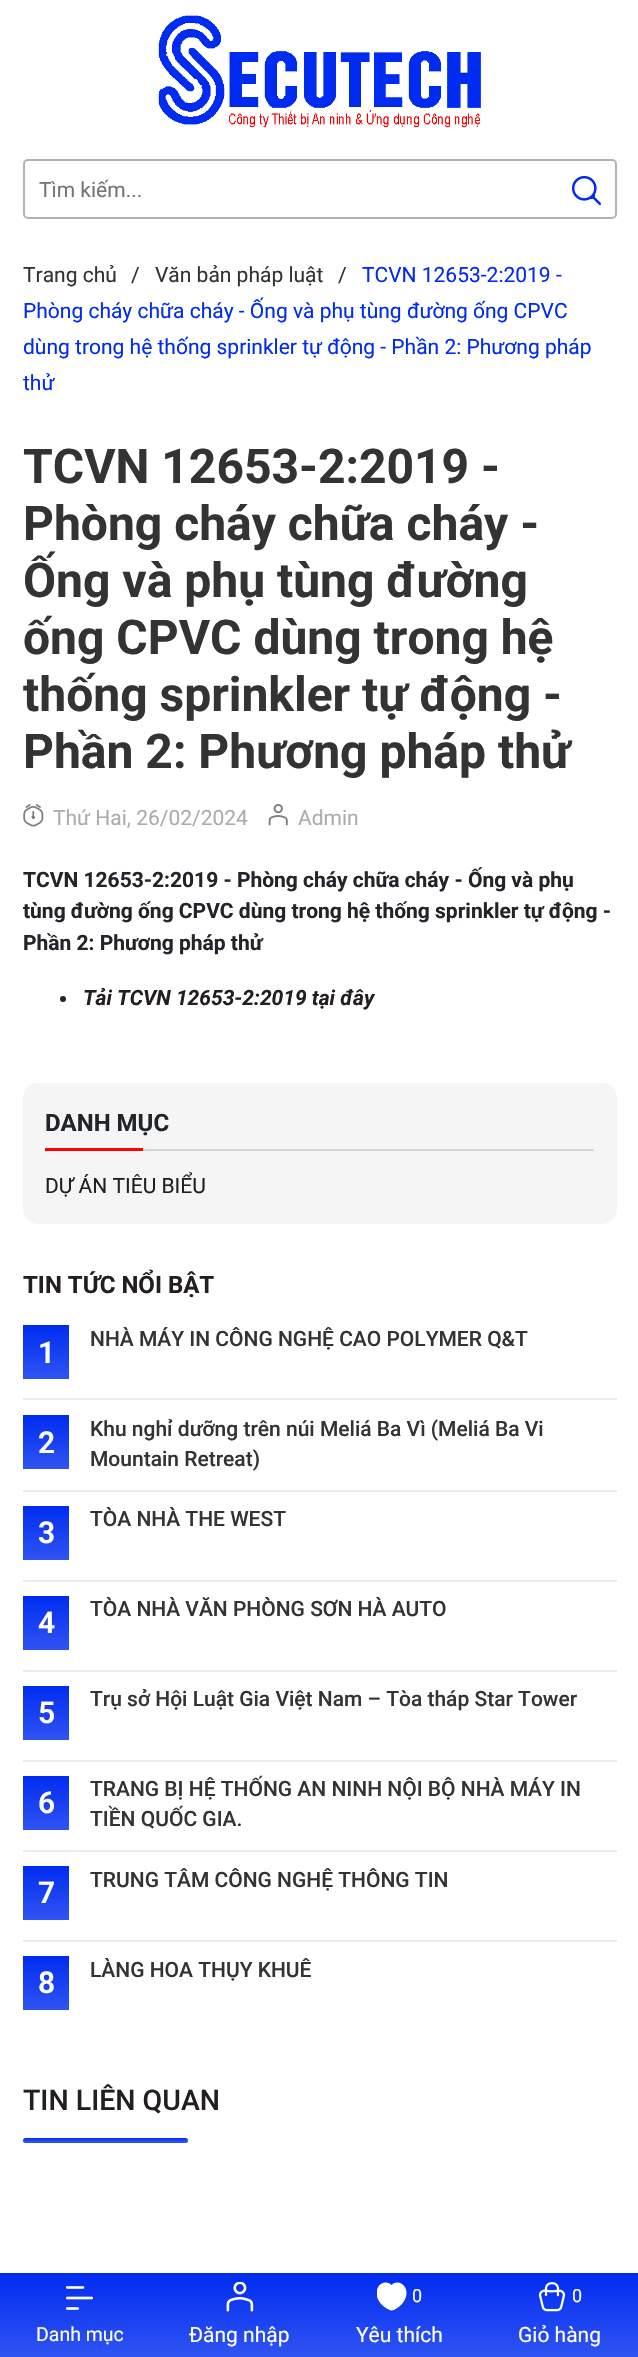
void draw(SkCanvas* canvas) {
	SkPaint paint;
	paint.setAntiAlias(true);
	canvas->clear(0xffffffff);
	canvas->drawImageRect(SkImages::DeferredFromEncodedData(SkData::MakeFromFileName("img1.png")), SkRect::MakeXYWH(158, 15, 323, 113), SkSamplingOptions());
	paint.setStroke(true);
	paint.setStrokeWidth(2);
	paint.setColor(0xffb3b3b3);
	canvas->drawRoundRect(SkRect::MakeXYWH(24, 160, 592, 58), 4, 4, paint);
	SkFont f1(fontMgr->matchFamilyStyle("Roboto", SkFontStyle::Normal()), 21);
	f1.setSubpixel(true);
	paint.setStroke(false);
	paint.setColor(0xff757575);
	canvas->drawString("Tìm kiếm...", 39, 197, f1, paint);
	canvas->drawImageRect(SkImages::DeferredFromEncodedData(SkData::MakeFromFileName("img2.png")), SkRect::MakeXYWH(572, 176, 30, 30), SkSamplingOptions());
	{
		const SkColor colors[] = {0xff002cf1, 0xff3054f2};
		const float stops[] = {0, 1};
		const SkPoint ends[] = {{320, 2273}, {320, 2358}};
		paint.setShader(SkGradientShader::MakeLinear(ends, colors, stops, 2, SkTileMode::kClamp));
		paint.setAlpha(255);
	}
	canvas->drawRect(SkRect::MakeXYWH(0, 2273, 638, 84), paint);
	canvas->drawImageRect(SkImages::DeferredFromEncodedData(SkData::MakeFromFileName("img3.png")), SkRect::MakeXYWH(66, 2286, 27, 24), SkSamplingOptions());
	SkFont f2(fontMgr->matchFamilyStyle("Roboto", SkFontStyle::Normal()), 19.5);
	f2.setSubpixel(true);
	paint.setShader(nullptr);
	paint.setColor(0xffffffff);
	canvas->drawString("Danh mục", 36, 2341, f2, paint);
	canvas->drawImageRect(SkImages::DeferredFromEncodedData(SkData::MakeFromFileName("img4.png")), SkRect::MakeXYWH(226, 2282, 28, 30), SkSamplingOptions());
	canvas->drawString("Đăng nhập", 189, 2342, f1, paint);
	canvas->drawImageRect(SkImages::DeferredFromEncodedData(SkData::MakeFromFileName("img5.png")), SkRect::MakeXYWH(377, 2282, 30, 29), SkSamplingOptions());
	SkFont f3(fontMgr->matchFamilyStyle("Roboto", SkFontStyle::Normal()), 18);
	f3.setSubpixel(true);
	canvas->drawString("0", 412, 2302, f3, paint);
	canvas->drawString("Yêu thích", 356, 2342, f1, paint);
	canvas->drawImageRect(SkImages::DeferredFromEncodedData(SkData::MakeFromFileName("img6.png")), SkRect::MakeXYWH(538, 2282, 27, 30), SkSamplingOptions());
	canvas->drawString("0", 572, 2302, f3, paint);
	canvas->drawString("Giỏ hàng", 518, 2342, f1, paint);
	paint.setColor(0xff333333);
	canvas->drawString("Trang chủ", 23, 282, f1, paint);
	canvas->drawString("/", 131, 282, f1, paint);
	canvas->drawString("Văn bản pháp luật", 155, 282, f1, paint);
	canvas->drawString("/", 338, 282, f1, paint);
	paint.setColor(0xff002cf1);
	canvas->drawString("TCVN 12653-2:2019 -", 362, 282, f1, paint);
	canvas->drawString("Phòng cháy chữa cháy - Ống và phụ tùng đường ống CPVC", 23, 318, f1, paint);
	canvas->drawString("dùng trong hệ thống sprinkler tự động - Phần 2: Phương pháp", 23, 354, f1, paint);
	canvas->drawString("thử", 23, 390, f1, paint);
	SkFont f4(fontMgr->matchFamilyStyle("Roboto", SkFontStyle::Bold()), 48);
	f4.setSubpixel(true);
	paint.setColor(0xff333333);
	canvas->drawString("TCVN 12653-2:2019 -", 23, 483, f4, paint);
	canvas->drawString("Phòng cháy chữa cháy -", 23, 540, f4, paint);
	canvas->drawString("Ống và phụ tùng đường", 23, 597, f4, paint);
	canvas->drawString("ống CPVC dùng trong hệ", 23, 654, f4, paint);
	canvas->drawString("thống sprinkler tự động -", 23, 711, f4, paint);
	canvas->drawString("Phần 2: Phương pháp thử", 23, 768, f4, paint);
	canvas->drawImageRect(SkImages::DeferredFromEncodedData(SkData::MakeFromFileName("img7.png")), SkRect::MakeXYWH(23, 804, 21, 23), SkSamplingOptions());
	paint.setColor(0xffacacac);
	canvas->drawString("Thứ Hai, 26/02/2024", 53, 825, f1, paint);
	canvas->drawImageRect(SkImages::DeferredFromEncodedData(SkData::MakeFromFileName("img8.png")), SkRect::MakeXYWH(268, 804, 20, 22), SkSamplingOptions());
	canvas->drawString("Admin", 298, 825, f1, paint);
	SkFont f5(fontMgr->matchFamilyStyle("Roboto", SkFontStyle::Bold()), 21);
	f5.setSubpixel(true);
	paint.setColor(0xff212529);
	canvas->drawString("TCVN 12653-2:2019 - Phòng cháy chữa cháy - Ống và phụ", 23, 887, f5, paint);
	canvas->drawString("tùng đường ống CPVC dùng trong hệ thống sprinkler tự động -", 23, 918, f5, paint);
	canvas->drawString("Phần 2: Phương pháp thử", 23, 950, f5, paint);
	canvas->drawCircle(63, 999, 3, paint);
	SkFont f6(fontMgr->matchFamilyStyle("Roboto", SkFontStyle::BoldItalic()), 21);
	f6.setSubpixel(true);
	paint.setColor(0xff231f20);
	canvas->drawString("Tải TCVN 12653-2:2019 tại đây", 83, 1005, f6, paint);
	paint.setColor(0xfff5f5f5);
	canvas->drawRoundRect(SkRect::MakeXYWH(23, 1083, 594, 141), 15, 15, paint);
	paint.setColor(0xffd8d5d5);
	canvas->drawRect(SkRect::MakeXYWH(143, 1149, 451, 2), paint);
	SkFont f7(fontMgr->matchFamilyStyle("Roboto", SkFontStyle::Bold()), 24);
	f7.setSubpixel(true);
	paint.setColor(0xff212529);
	canvas->drawString("DANH MỤC", 45, 1131, f7, paint);
	paint.setColor(0xffff0000);
	canvas->drawRect(SkRect::MakeXYWH(45, 1148, 98, 3), paint);
	paint.setColor(0xff231f20);
	canvas->drawString("DỰ ÁN TIÊU BIỂU", 45, 1193, f1, paint);
	canvas->drawString("TIN TỨC NỔI BẬT", 23, 1293, f7, paint);
	paint.setColor(0xffebebeb);
	canvas->drawRect(SkRect::MakeXYWH(23, 1398, 594, 2), paint);
	{
		const SkColor colors[] = {0xff002cf1, 0xff3054f2};
		const float stops[] = {0, 1};
		const SkPoint ends[] = {{46, 1325}, {46, 1379}};
		paint.setShader(SkGradientShader::MakeLinear(ends, colors, stops, 2, SkTileMode::kClamp));
		paint.setAlpha(255);
	}
	canvas->drawRect(SkRect::MakeXYWH(23, 1325, 46, 54), paint);
	SkFont f8(fontMgr->matchFamilyStyle("Roboto", SkFontStyle(600, SkFontStyle::kNormal_Width, SkFontStyle::kUpright_Slant)), 30);
	f8.setSubpixel(true);
	paint.setShader(nullptr);
	paint.setColor(0xffffffff);
	canvas->drawString("1", 38, 1363, f8, paint);
	SkFont f9(fontMgr->matchFamilyStyle("Roboto", SkFontStyle(500, SkFontStyle::kNormal_Width, SkFontStyle::kUpright_Slant)), 21);
	f9.setSubpixel(true);
	paint.setColor(0xff333333);
	canvas->drawString("NHÀ MÁY IN CÔNG NGHỆ CAO POLYMER Q&T", 90, 1346, f9, paint);
	paint.setColor(0xffebebeb);
	canvas->drawRect(SkRect::MakeXYWH(23, 1490, 594, 2), paint);
	{
		const SkColor colors[] = {0xff002cf1, 0xff3054f2};
		const float stops[] = {0, 1};
		const SkPoint ends[] = {{46, 1415}, {46, 1469}};
		paint.setShader(SkGradientShader::MakeLinear(ends, colors, stops, 2, SkTileMode::kClamp));
		paint.setAlpha(255);
	}
	canvas->drawRect(SkRect::MakeXYWH(23, 1415, 46, 54), paint);
	paint.setShader(nullptr);
	paint.setColor(0xffffffff);
	canvas->drawString("2", 38, 1453, f8, paint);
	paint.setColor(0xff333333);
	canvas->drawString("Khu nghỉ dưỡng trên núi Meliá Ba Vì (Meliá Ba Vi", 90, 1436, f9, paint);
	canvas->drawString("Mountain Retreat)", 90, 1466, f9, paint);
	paint.setColor(0xffebebeb);
	canvas->drawRect(SkRect::MakeXYWH(23, 1580, 594, 2), paint);
	paint.setColor(0xff333333);
	canvas->drawString("TÒA NHÀ THE WEST", 90, 1526, f9, paint);
	{
		const SkColor colors[] = {0xff002cf1, 0xff3054f2};
		const float stops[] = {0, 1};
		const SkPoint ends[] = {{46, 1506}, {46, 1560}};
		paint.setShader(SkGradientShader::MakeLinear(ends, colors, stops, 2, SkTileMode::kClamp));
		paint.setAlpha(255);
	}
	canvas->drawRect(SkRect::MakeXYWH(23, 1506, 46, 54), paint);
	paint.setShader(nullptr);
	paint.setColor(0xffffffff);
	canvas->drawString("3", 38, 1543, f8, paint);
	paint.setColor(0xffebebeb);
	canvas->drawRect(SkRect::MakeXYWH(23, 1670, 594, 2), paint);
	paint.setColor(0xff333333);
	canvas->drawString("TÒA NHÀ VĂN PHÒNG SƠN HÀ AUTO", 90, 1616, f9, paint);
	{
		const SkColor colors[] = {0xff002cf1, 0xff3054f2};
		const float stops[] = {0, 1};
		const SkPoint ends[] = {{46, 1596}, {46, 1650}};
		paint.setShader(SkGradientShader::MakeLinear(ends, colors, stops, 2, SkTileMode::kClamp));
		paint.setAlpha(255);
	}
	canvas->drawRect(SkRect::MakeXYWH(23, 1596, 46, 54), paint);
	paint.setShader(nullptr);
	paint.setColor(0xffffffff);
	canvas->drawString("4", 38, 1633, f8, paint);
	paint.setColor(0xffebebeb);
	canvas->drawRect(SkRect::MakeXYWH(23, 1760, 594, 2), paint);
	{
		const SkColor colors[] = {0xff002cf1, 0xff3054f2};
		const float stops[] = {0, 1};
		const SkPoint ends[] = {{46, 1686}, {46, 1740}};
		paint.setShader(SkGradientShader::MakeLinear(ends, colors, stops, 2, SkTileMode::kClamp));
		paint.setAlpha(255);
	}
	canvas->drawRect(SkRect::MakeXYWH(23, 1686, 46, 54), paint);
	paint.setShader(nullptr);
	paint.setColor(0xffffffff);
	canvas->drawString("5", 38, 1723, f8, paint);
	paint.setColor(0xff333333);
	canvas->drawString("Trụ sở Hội Luật Gia Việt Nam – Tòa tháp Star Tower", 90, 1706, f9, paint);
	paint.setColor(0xffebebeb);
	canvas->drawRect(SkRect::MakeXYWH(23, 1850, 594, 2), paint);
	{
		const SkColor colors[] = {0xff002cf1, 0xff3054f2};
		const float stops[] = {0, 1};
		const SkPoint ends[] = {{46, 1776}, {46, 1830}};
		paint.setShader(SkGradientShader::MakeLinear(ends, colors, stops, 2, SkTileMode::kClamp));
		paint.setAlpha(255);
	}
	canvas->drawRect(SkRect::MakeXYWH(23, 1776, 46, 54), paint);
	paint.setShader(nullptr);
	paint.setColor(0xffffffff);
	canvas->drawString("6", 38, 1813, f8, paint);
	paint.setColor(0xff333333);
	canvas->drawString("TRANG BỊ HỆ THỐNG AN NINH NỘI BỘ NHÀ MÁY IN", 90, 1796, f9, paint);
	canvas->drawString("TIỀN QUỐC GIA.", 90, 1826, f9, paint);
	paint.setColor(0xffebebeb);
	canvas->drawRect(SkRect::MakeXYWH(23, 1940, 594, 2), paint);
	{
		const SkColor colors[] = {0xff002cf1, 0xff3054f2};
		const float stops[] = {0, 1};
		const SkPoint ends[] = {{46, 1866}, {46, 1920}};
		paint.setShader(SkGradientShader::MakeLinear(ends, colors, stops, 2, SkTileMode::kClamp));
		paint.setAlpha(255);
	}
	canvas->drawRect(SkRect::MakeXYWH(23, 1866, 46, 54), paint);
	paint.setShader(nullptr);
	paint.setColor(0xffffffff);
	canvas->drawString("7", 38, 1903, f8, paint);
	paint.setColor(0xff333333);
	canvas->drawString("TRUNG TÂM CÔNG NGHỆ THÔNG TIN", 90, 1887, f9, paint);
	{
		const SkColor colors[] = {0xff002cf1, 0xff3054f2};
		const float stops[] = {0, 1};
		const SkPoint ends[] = {{46, 1956}, {46, 2010}};
		paint.setShader(SkGradientShader::MakeLinear(ends, colors, stops, 2, SkTileMode::kClamp));
		paint.setAlpha(255);
	}
	canvas->drawRect(SkRect::MakeXYWH(23, 1956, 46, 54), paint);
	paint.setShader(nullptr);
	paint.setColor(0xffffffff);
	canvas->drawString("8", 38, 1993, f8, paint);
	paint.setColor(0xff333333);
	canvas->drawString("LÀNG HOA THỤY KHUÊ", 90, 1977, f9, paint);
	SkFont f10(fontMgr->matchFamilyStyle("Roboto", SkFontStyle(500, SkFontStyle::kNormal_Width, SkFontStyle::kUpright_Slant)), 28.5);
	f10.setSubpixel(true);
	paint.setColor(0xff231f20);
	canvas->drawString("TIN LIÊN QUAN", 23, 2110, f10, paint);
	{
		const SkColor colors[] = {0xff002cf1, 0xff3054f2};
		const float stops[] = {0, 1};
		const SkPoint ends[] = {{105, 2138}, {105, 2142}};
		paint.setShader(SkGradientShader::MakeLinear(ends, colors, stops, 2, SkTileMode::kClamp));
		paint.setAlpha(255);
	}
	canvas->drawRoundRect(SkRect::MakeXYWH(23, 2138, 165, 5), 2.5, 2.5, paint);
}
